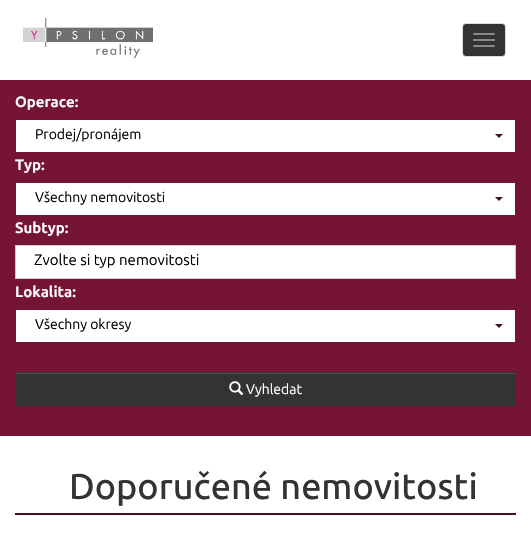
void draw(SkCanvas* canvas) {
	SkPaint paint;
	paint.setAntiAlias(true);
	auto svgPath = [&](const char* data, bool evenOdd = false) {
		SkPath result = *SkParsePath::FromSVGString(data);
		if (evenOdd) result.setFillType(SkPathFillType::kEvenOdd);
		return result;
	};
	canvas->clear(0xffffffff);
	canvas->drawImageRect(SkImages::DeferredFromEncodedData(SkData::MakeFromFileName("img1.png")), SkRect::MakeXYWH(23, 18, 130, 40), SkSamplingOptions());
	paint.setColor(0xff333333);
	canvas->drawRoundRect(SkRect::MakeXYWH(462.5, 23.5, 43, 33), 3.5, 3.5, paint);
	paint.setStroke(true);
	paint.setStrokeWidth(1);
	paint.setColor(0xffdddddd);
	canvas->drawRoundRect(SkRect::MakeXYWH(462.5, 23.5, 43, 33), 3.5, 3.5, paint);
	paint.setStroke(false);
	paint.setColor(0xff888888);
	canvas->drawRoundRect(SkRect::MakeXYWH(473, 33, 22, 2), 1, 1, paint);
	canvas->drawRoundRect(SkRect::MakeXYWH(473, 39, 22, 2), 1, 1, paint);
	canvas->drawRoundRect(SkRect::MakeXYWH(473, 45, 22, 2), 1, 1, paint);
	paint.setColor(0xff751436);
	canvas->drawRect(SkRect::MakeXYWH(0, 80, 531, 356), paint);
	SkFont f1(fontMgr->matchFamilyStyle("Ubuntu", SkFontStyle::Bold()), 15);
	f1.setSubpixel(true);
	paint.setColor(0xffffffff);
	canvas->drawString("Operace:", 15, 107, f1, paint);
	canvas->drawRect(SkRect::MakeXYWH(16, 120, 499, 32), paint);
	SkFont f2(fontMgr->matchFamilyStyle("Ubuntu", SkFontStyle::Normal()), 14);
	f2.setSubpixel(true);
	paint.setColor(0xff000000);
	canvas->drawString("Prodej/pronájem", 35, 139, f2, paint);
	paint.setColor(0xff490d22);
	canvas->drawPath(svgPath("M495 134H503L499 138Z"), paint);
	paint.setColor(0xffffffff);
	canvas->drawString("Typ:", 15, 170, f1, paint);
	canvas->drawRect(SkRect::MakeXYWH(16, 183, 499, 32), paint);
	paint.setColor(0xff000000);
	canvas->drawString("Všechny nemovitosti", 35, 202, f2, paint);
	paint.setColor(0xff490d22);
	canvas->drawPath(svgPath("M495 197H503L499 201Z"), paint);
	paint.setColor(0xffffffff);
	canvas->drawString("Subtyp:", 15, 233, f1, paint);
	canvas->drawRect(SkRect::MakeXYWH(15.5, 245.5, 500, 33), paint);
	paint.setStroke(true);
	paint.setColor(0xffcccccc);
	canvas->drawRect(SkRect::MakeXYWH(15.5, 245.5, 500, 33), paint);
	SkFont f3(fontMgr->matchFamilyStyle("Ubuntu", SkFontStyle::Normal()), 15);
	f3.setSubpixel(true);
	paint.setStroke(false);
	paint.setColor(0xff000000);
	canvas->drawString("Zvolte si typ nemovitosti", 34, 265, f3, paint);
	paint.setColor(0xffffffff);
	canvas->drawString("Lokalita:", 15, 297, f1, paint);
	canvas->drawRect(SkRect::MakeXYWH(16, 310, 499, 32), paint);
	paint.setColor(0xff000000);
	canvas->drawString("Všechny okresy", 35, 329, f2, paint);
	paint.setColor(0xff490d22);
	canvas->drawPath(svgPath("M495 324H503L499 328Z"), paint);
	paint.setColor(0xff333333);
	canvas->drawRect(SkRect::MakeXYWH(15, 372, 501, 34), paint);
	paint.setColor(0xff525252);
	canvas->drawRect(SkRect::MakeXYWH(16, 373, 499, 1), paint);
	canvas->drawImageRect(SkImages::DeferredFromEncodedData(SkData::MakeFromFileName("img2.png")), SkRect::MakeXYWH(229, 381, 15, 15), SkSamplingOptions());
	paint.setColor(0xffffffff);
	canvas->drawString("Vyhledat", 246, 394, f2, paint);
	paint.setColor(0xff490d22);
	canvas->drawRect(SkRect::MakeXYWH(15, 513, 501, 2), paint);
	SkFont f4(fontMgr->matchFamilyStyle("Ubuntu", SkFontStyle(500, SkFontStyle::kNormal_Width, SkFontStyle::kUpright_Slant)), 36);
	f4.setSubpixel(true);
	paint.setColor(0xff333333);
	canvas->drawString("Doporučené nemovitosti", 69, 499, f4, paint);
}
